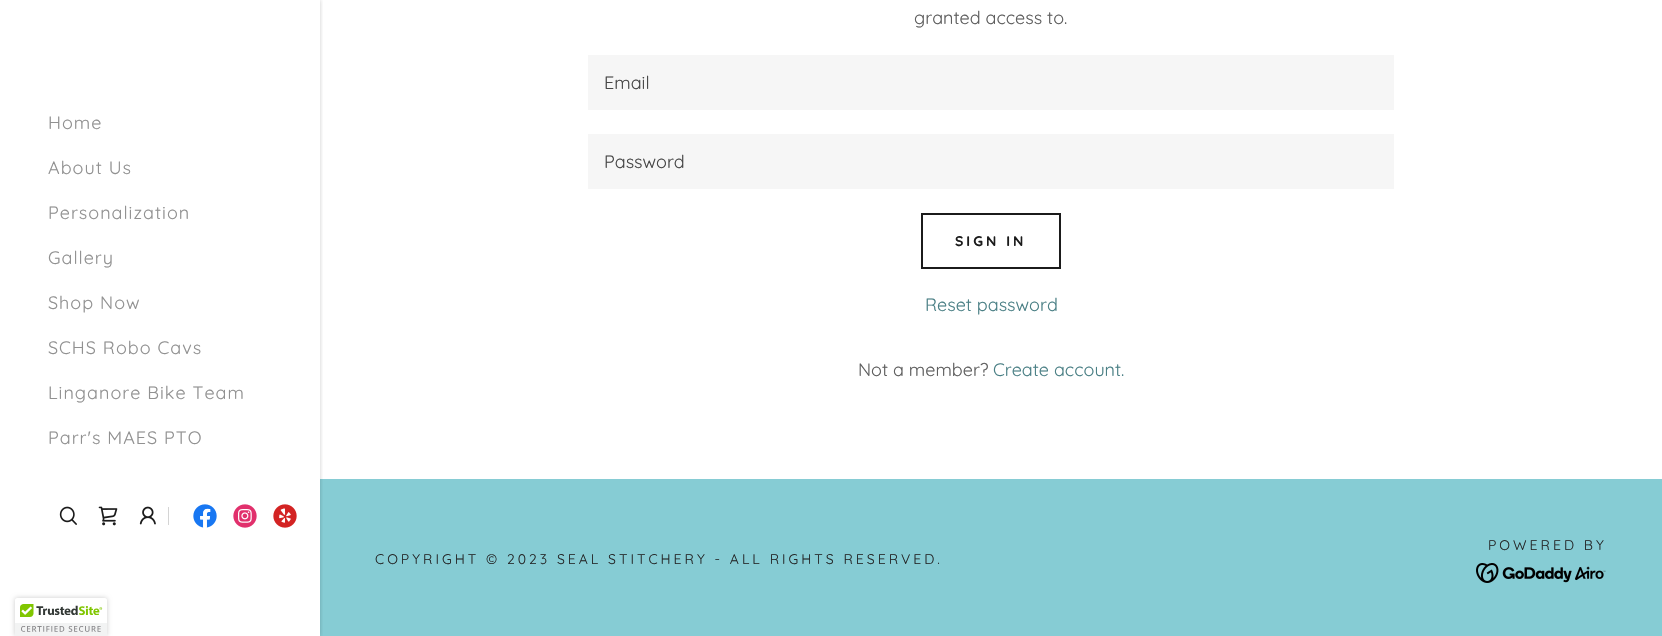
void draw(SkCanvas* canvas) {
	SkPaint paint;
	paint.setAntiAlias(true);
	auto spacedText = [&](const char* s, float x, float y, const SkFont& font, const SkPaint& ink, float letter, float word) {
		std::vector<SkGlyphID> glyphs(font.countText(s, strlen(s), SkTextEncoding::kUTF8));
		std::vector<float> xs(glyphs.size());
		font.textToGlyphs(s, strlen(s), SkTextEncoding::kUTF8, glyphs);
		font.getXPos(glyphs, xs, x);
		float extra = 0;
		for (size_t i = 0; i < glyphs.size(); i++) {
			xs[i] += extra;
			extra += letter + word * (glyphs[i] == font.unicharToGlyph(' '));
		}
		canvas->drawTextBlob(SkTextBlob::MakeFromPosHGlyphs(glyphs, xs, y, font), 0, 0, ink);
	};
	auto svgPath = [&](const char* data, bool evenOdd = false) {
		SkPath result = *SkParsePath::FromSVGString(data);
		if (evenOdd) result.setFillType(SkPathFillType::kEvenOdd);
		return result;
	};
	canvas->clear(0xffffffff);
	paint.setColor(0xff86ccd4);
	canvas->drawRect(SkRect::MakeXYWH(320, 479, 1342, 157), paint);
	canvas->save();
	canvas->clipRect(SkRect::MakeXYWH(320, 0, 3, 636));
	paint.setColor(0x33000000);
	paint.setMaskFilter(SkMaskFilter::MakeBlur(kNormal_SkBlurStyle, 2));
	canvas->drawRect(SkRect::MakeXYWH(0, 0, 320, 636), paint);
	paint.setMaskFilter(nullptr);
	canvas->restore();
	SkFont f1(fontMgr->matchFamilyStyle("Quicksand", SkFontStyle::Normal()), 18);
	f1.setSubpixel(true);
	paint.setColor(0xff919191);
	spacedText("Home", 48, 129, f1, paint, 1, 0);
	spacedText("About Us", 48, 174, f1, paint, 1, 0);
	spacedText("Personalization", 48, 219, f1, paint, 1, 0);
	spacedText("Gallery", 48, 264, f1, paint, 1, 0);
	spacedText("Shop Now", 48, 309, f1, paint, 1, 0);
	spacedText("SCHS Robo Cavs", 48, 354, f1, paint, 1, 0);
	spacedText("Linganore Bike Team", 48, 399, f1, paint, 1, 0);
	spacedText("Parr's MAES PTO", 48, 444, f1, paint, 1, 0);
	canvas->drawImageRect(SkImages::DeferredFromEncodedData(SkData::MakeFromFileName("img1.png")), SkRect::MakeXYWH(59, 506, 18, 19), SkSamplingOptions());
	canvas->drawImageRect(SkImages::DeferredFromEncodedData(SkData::MakeFromFileName("img2.png")), SkRect::MakeXYWH(98, 506, 20, 20), SkSamplingOptions());
	canvas->drawImageRect(SkImages::DeferredFromEncodedData(SkData::MakeFromFileName("img3.png")), SkRect::MakeXYWH(139, 506, 17, 19), SkSamplingOptions());
	paint.setColor(0xffd4d4d4);
	canvas->drawRect(SkRect::MakeXYWH(168, 507, 1, 18), paint);
	canvas->drawImageRect(SkImages::DeferredFromEncodedData(SkData::MakeFromFileName("img4.png")), SkRect::MakeXYWH(193, 504, 24, 24), SkSamplingOptions());
	canvas->drawImageRect(SkImages::DeferredFromEncodedData(SkData::MakeFromFileName("img5.png")), SkRect::MakeXYWH(233, 504, 24, 24), SkSamplingOptions());
	canvas->drawImageRect(SkImages::DeferredFromEncodedData(SkData::MakeFromFileName("img6.png")), SkRect::MakeXYWH(273, 504, 24, 24), SkSamplingOptions());
	paint.setColor(0xff5e5e5e);
	canvas->drawString("granted access to.", 914, 24, f1, paint);
	paint.setColor(0xfff6f6f6);
	canvas->drawRect(SkRect::MakeXYWH(588, 55, 806, 55), paint);
	paint.setColor(0xff474747);
	canvas->drawString("Email", 604, 89, f1, paint);
	paint.setColor(0xfff6f6f6);
	canvas->drawRect(SkRect::MakeXYWH(588, 134, 806, 55), paint);
	paint.setColor(0xff474747);
	canvas->drawString("Password", 604, 168, f1, paint);
	paint.setStroke(true);
	paint.setStrokeWidth(2);
	paint.setColor(0xff1b1b1b);
	canvas->drawRect(SkRect::MakeXYWH(922, 214, 138, 54), paint);
	SkFont f2(fontMgr->matchFamilyStyle("Quicksand", SkFontStyle::Bold()), 14);
	f2.setSubpixel(true);
	paint.setStroke(false);
	spacedText("SIGN IN", 955, 246, f2, paint, 3, 0);
	paint.setColor(0xff4a7f85);
	canvas->drawString("Reset password", 925, 311, f1, paint);
	paint.setColor(0xff5e5e5e);
	canvas->drawString("Not a member?", 858, 376, f1, paint);
	paint.setColor(0xff4a7f85);
	canvas->drawString("Create account.", 993, 376, f1, paint);
	SkFont f3(fontMgr->matchFamilyStyle("Quicksand", SkFontStyle::Normal()), 14);
	f3.setSubpixel(true);
	paint.setColor(0xff252829);
	spacedText("POWERED BY", 1488, 550, f3, paint, 3, 0);
	canvas->drawImageRect(SkImages::DeferredFromEncodedData(SkData::MakeFromFileName("img7.png")), SkRect::MakeXYWH(1476, 563, 130, 20), SkSamplingOptions());
	spacedText("COPYRIGHT © 2023 SEAL STITCHERY - ALL RIGHTS RESERVED.", 375, 564, f3, paint, 3, 0);
	paint.setColor(0x33000000);
	paint.setMaskFilter(SkMaskFilter::MakeBlur(kNormal_SkBlurStyle, 2.5));
	canvas->drawRoundRect(SkRect::MakeXYWH(15, 598, 92, 38), 2, 2, paint);
	paint.setMaskFilter(nullptr);
	paint.setColor(0xffffffff);
	canvas->drawPath(svgPath("M17 598H105C106 598 107 599 107 600V636H15V600C15 599 16 598 17 598Z"), paint);
	canvas->drawImageRect(SkImages::DeferredFromEncodedData(SkData::MakeFromFileName("img8.png")), SkRect::MakeXYWH(15, 604, 92, 32), SkSamplingOptions());
}
